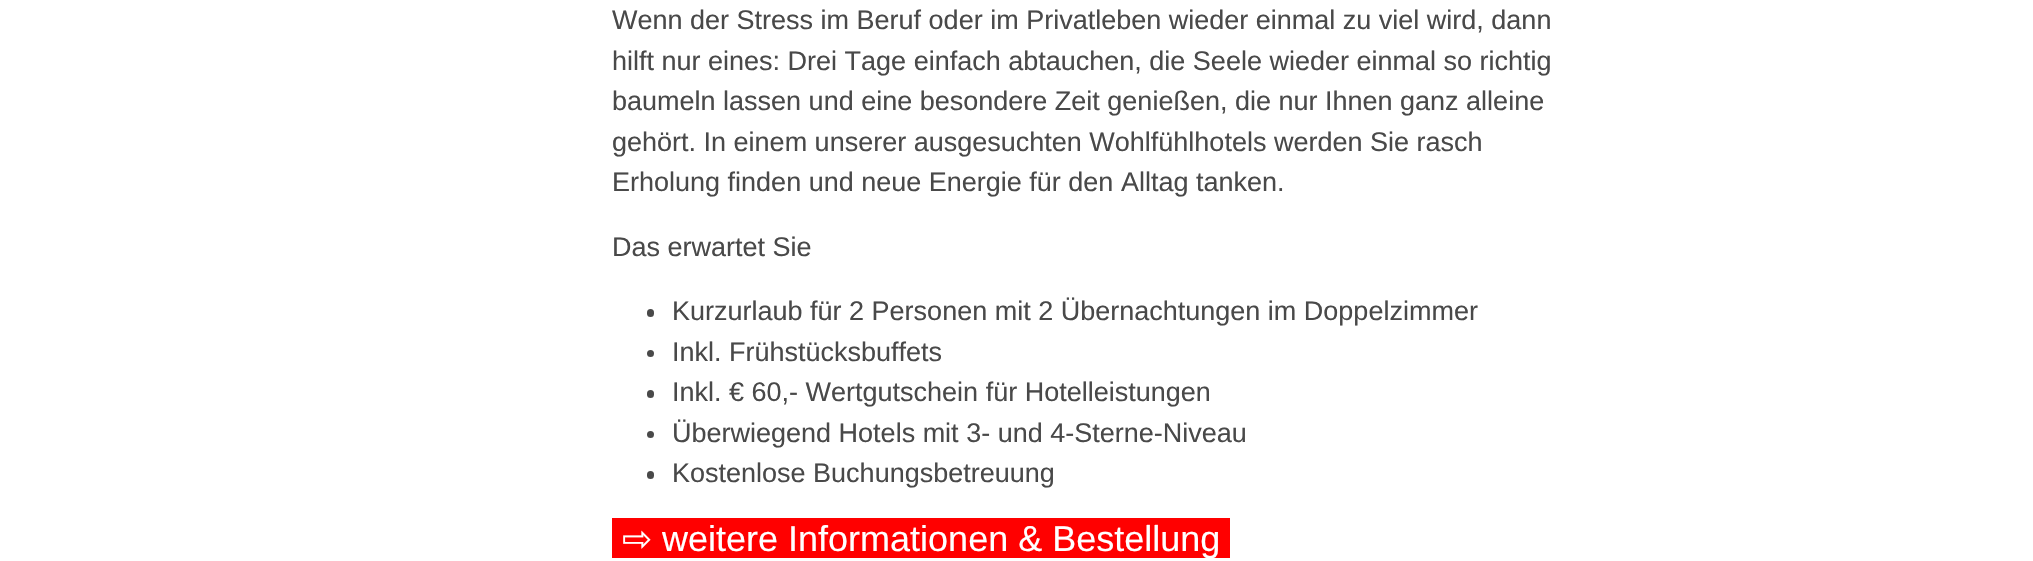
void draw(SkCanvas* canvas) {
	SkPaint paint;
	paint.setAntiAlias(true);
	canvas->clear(0xffffffff);
	SkFont f1(fontMgr->matchFamilyStyle("Liberation Sans", SkFontStyle::Normal()), 27);
	f1.setSubpixel(true);
	paint.setColor(0xff494949);
	canvas->drawString("Wenn der Stress im Beruf oder im Privatleben wieder einmal zu viel wird, dann", 612, 29, f1, paint);
	canvas->drawString("hilft nur eines: Drei Tage einfach abtauchen, die Seele wieder einmal so richtig", 612, 70, f1, paint);
	canvas->drawString("baumeln lassen und eine besondere Zeit genießen, die nur Ihnen ganz alleine", 612, 110, f1, paint);
	canvas->drawString("gehört. In einem unserer ausgesuchten Wohlfühlhotels werden Sie rasch", 612, 151, f1, paint);
	canvas->drawString("Erholung finden und neue Energie für den Alltag tanken.", 612, 191, f1, paint);
	canvas->drawString("Das erwartet Sie", 612, 256, f1, paint);
	canvas->drawRoundRect(SkRect::MakeXYWH(647, 309, 7, 8), 3.5, 3.5, paint);
	canvas->drawString("Kurzurlaub für 2 Personen mit 2 Übernachtungen im Doppelzimmer", 672, 320, f1, paint);
	canvas->drawCircle(650.5, 353.5, 3.5, paint);
	canvas->drawString("Inkl. Frühstücksbuffets", 672, 361, f1, paint);
	canvas->drawRoundRect(SkRect::MakeXYWH(647, 390, 7, 8), 3.5, 3.5, paint);
	canvas->drawString("Inkl. € 60,- Wertgutschein für Hotelleistungen", 672, 401, f1, paint);
	canvas->drawCircle(650.5, 434.5, 3.5, paint);
	canvas->drawString("Überwiegend Hotels mit 3- und 4-Sterne-Niveau", 672, 442, f1, paint);
	canvas->drawRoundRect(SkRect::MakeXYWH(647, 471, 7, 8), 3.5, 3.5, paint);
	canvas->drawString("Kostenlose Buchungsbetreuung", 672, 482, f1, paint);
	paint.setColor(0xffff0000);
	canvas->drawRect(SkRect::MakeXYWH(612, 518, 618, 40), paint);
	SkFont f2(fontMgr->matchFamilyStyle("DejaVu Sans", SkFontStyle::Normal()), 36);
	f2.setSubpixel(true);
	paint.setColor(0xffffffff);
	canvas->drawString("⇨", 622, 551, f2, paint);
	SkFont f3(fontMgr->matchFamilyStyle("Liberation Sans", SkFontStyle::Normal()), 36);
	f3.setSubpixel(true);
	canvas->drawString("weitere Informationen & Bestellung", 662, 551, f3, paint);
}
